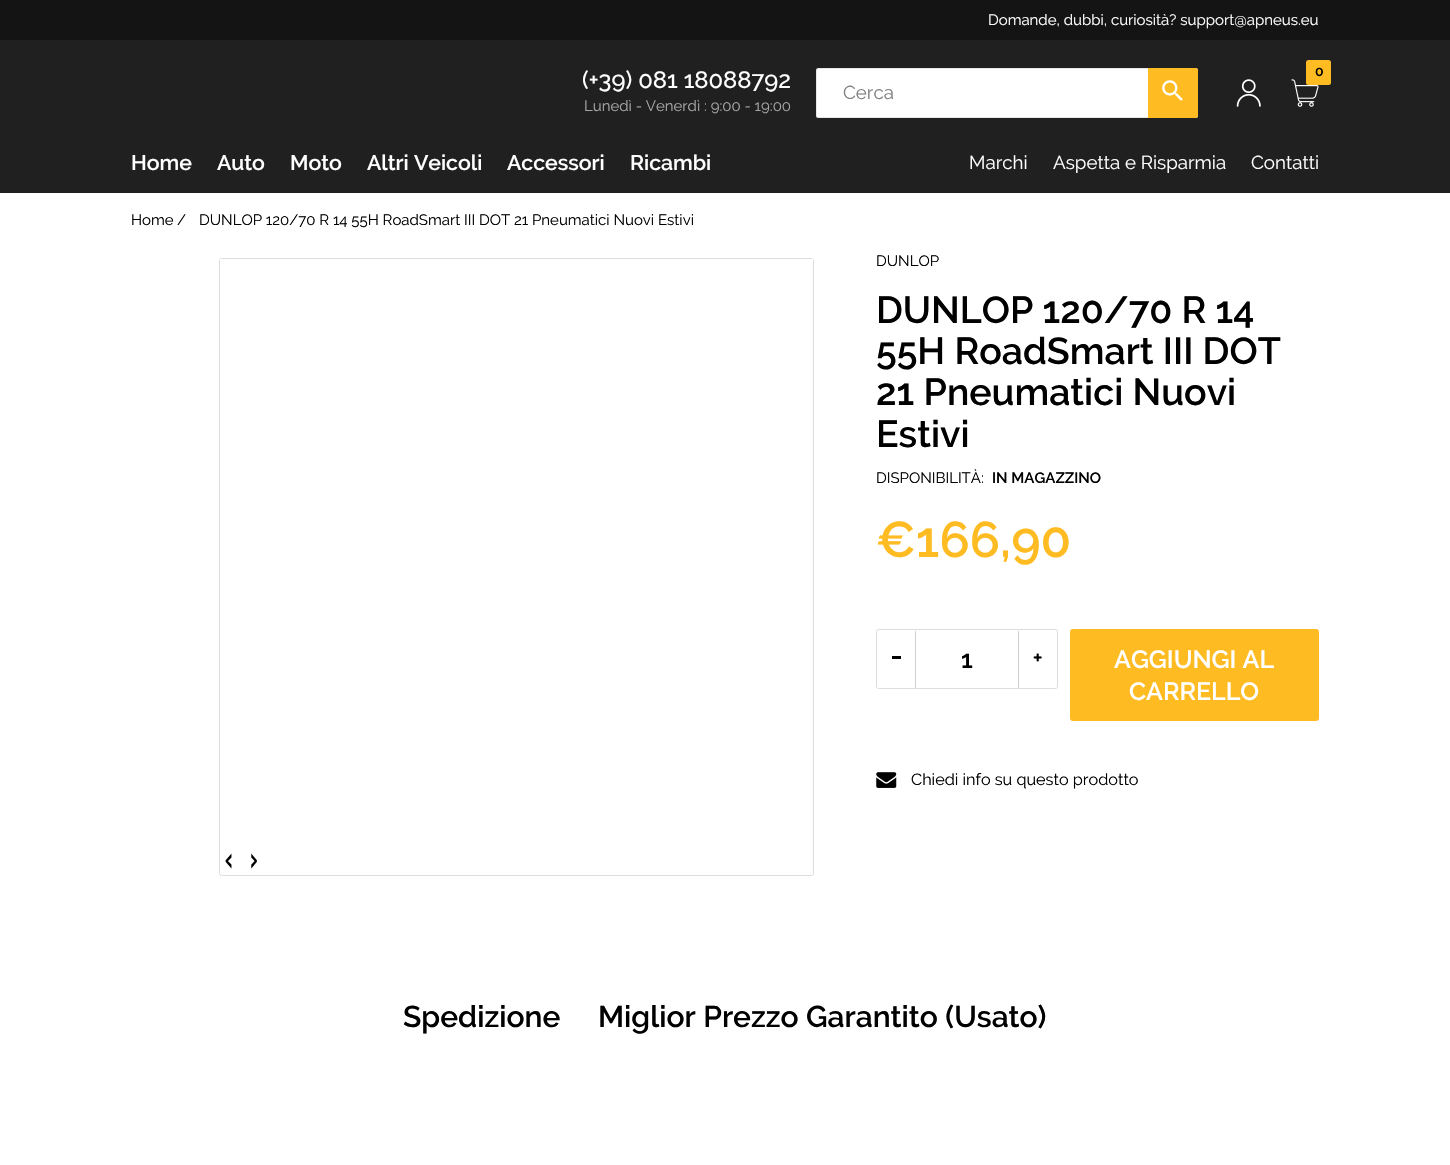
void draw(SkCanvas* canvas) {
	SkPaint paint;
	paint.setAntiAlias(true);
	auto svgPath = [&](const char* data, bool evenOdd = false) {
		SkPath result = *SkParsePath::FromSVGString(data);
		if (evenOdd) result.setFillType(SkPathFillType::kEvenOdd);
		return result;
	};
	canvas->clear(0xffffffff);
	paint.setColor(0xff202020);
	canvas->drawRect(SkRect::MakeXYWH(0, 40, 1450, 153), paint);
	paint.setColor(0xff141414);
	canvas->drawRect(SkRect::MakeXYWH(0, 0, 1450, 40), paint);
	SkFont f1(fontMgr->matchFamilyStyle("Raleway", SkFontStyle::Normal()), 15);
	f1.setSubpixel(true);
	paint.setColor(0xffffffff);
	canvas->drawString("Domande, dubbi, curiosità? support@apneus.eu", 988, 25, f1, paint);
	SkFont f2(fontMgr->matchFamilyStyle("Raleway", SkFontStyle(500, SkFontStyle::kNormal_Width, SkFontStyle::kUpright_Slant)), 23.75);
	f2.setSubpixel(true);
	canvas->drawString("(+39) 081 18088792", 582, 88, f2, paint);
	paint.setColor(0xffa6a6a6);
	canvas->drawString("Lunedì - Venerdì : 9:00 - 19:00", 584, 111, f1, paint);
	paint.setColor(0xffffffff);
	canvas->drawRoundRect(SkRect::MakeXYWH(816, 68, 382, 50), 2.5, 2.5, paint);
	paint.setStroke(true);
	paint.setStrokeWidth(1);
	paint.setColor(0x33808080);
	canvas->drawRoundRect(SkRect::MakeXYWH(816.5, 68.5, 381, 49), 2, 2, paint);
	SkFont f3(fontMgr->matchFamilyStyle("Raleway", SkFontStyle::Normal()), 18.75);
	f3.setSubpixel(true);
	paint.setStroke(false);
	paint.setColor(0xff808080);
	canvas->drawString("Cerca", 843, 99, f3, paint);
	paint.setColor(0xffffbb22);
	canvas->drawPath(svgPath("M1148 68H1195.5C1197 68 1198 69 1198 70.5V115.5C1198 117 1197 118 1195.5 118H1148Z"), paint);
	canvas->drawImageRect(SkImages::DeferredFromEncodedData(SkData::MakeFromFileName("img1.png")), SkRect::MakeXYWH(1162, 80, 21, 21), SkSamplingOptions());
	canvas->drawImageRect(SkImages::DeferredFromEncodedData(SkData::MakeFromFileName("img2.png")), SkRect::MakeXYWH(1291, 79, 28, 28), SkSamplingOptions());
	canvas->drawRoundRect(SkRect::MakeXYWH(1306, 60, 25, 25), 2.5, 2.5, paint);
	SkFont f4(fontMgr->matchFamilyStyle("Raleway", SkFontStyle(600, SkFontStyle::kNormal_Width, SkFontStyle::kUpright_Slant)), 14);
	f4.setSubpixel(true);
	paint.setColor(0xff000000);
	canvas->drawString("0", 1315, 76, f4, paint);
	canvas->drawImageRect(SkImages::DeferredFromEncodedData(SkData::MakeFromFileName("img3.png")), SkRect::MakeXYWH(1236, 79, 25, 28), SkSamplingOptions());
	SkFont f5(fontMgr->matchFamilyStyle("Raleway", SkFontStyle(600, SkFontStyle::kNormal_Width, SkFontStyle::kUpright_Slant)), 21.25);
	f5.setSubpixel(true);
	paint.setColor(0xffffffff);
	canvas->drawString("Home", 131, 170, f5, paint);
	canvas->drawString("Auto", 217, 170, f5, paint);
	canvas->drawString("Moto", 290, 170, f5, paint);
	canvas->drawString("Altri Veicoli", 367, 170, f5, paint);
	canvas->drawString("Accessori", 507, 170, f5, paint);
	canvas->drawString("Ricambi", 630, 170, f5, paint);
	canvas->drawString("Marchi", 969, 169, f3, paint);
	canvas->drawString("Aspetta e Risparmia", 1053, 169, f3, paint);
	canvas->drawString("Contatti", 1251, 169, f3, paint);
	paint.setColor(0xff000000);
	canvas->drawString("Home", 131, 225, f1, paint);
	canvas->drawString("/", 177, 225, f1, paint);
	canvas->drawString("DUNLOP 120/70 R 14 55H RoadSmart III DOT 21 Pneumatici Nuovi Estivi", 199, 225, f1, paint);
	paint.setStroke(true);
	paint.setColor(0xffdddddd);
	canvas->drawRoundRect(SkRect::MakeXYWH(219.5, 258.5, 594, 617), 2, 2, paint);
	paint.setStroke(false);
	paint.setColor(0xffffffff);
	canvas->drawRect(SkRect::MakeXYWH(220, 259, 593, 1), paint);
	canvas->drawImageRect(SkImages::DeferredFromEncodedData(SkData::MakeFromFileName("img4.png")), SkRect::MakeXYWH(225, 853, 7, 16), SkSamplingOptions());
	canvas->drawImageRect(SkImages::DeferredFromEncodedData(SkData::MakeFromFileName("img5.png")), SkRect::MakeXYWH(251, 853, 6, 16), SkSamplingOptions());
	paint.setColor(0xff000000);
	canvas->drawString("DUNLOP", 876, 266, f1, paint);
	SkFont f6(fontMgr->matchFamilyStyle("Raleway", SkFontStyle(600, SkFontStyle::kNormal_Width, SkFontStyle::kUpright_Slant)), 37.5);
	f6.setSubpixel(true);
	canvas->drawString("DUNLOP 120/70 R 14", 876, 323, f6, paint);
	canvas->drawString("55H RoadSmart III DOT", 876, 364, f6, paint);
	canvas->drawString("21 Pneumatici Nuovi", 876, 405, f6, paint);
	canvas->drawString("Estivi", 876, 447, f6, paint);
	canvas->drawString("DISPONIBILITÀ:", 876, 483, f1, paint);
	SkFont f7(fontMgr->matchFamilyStyle("Raleway", SkFontStyle(600, SkFontStyle::kNormal_Width, SkFontStyle::kUpright_Slant)), 15);
	f7.setSubpixel(true);
	canvas->drawString("IN MAGAZZINO", 992, 483, f7, paint);
	SkFont f8(fontMgr->matchFamilyStyle("Raleway", SkFontStyle(600, SkFontStyle::kNormal_Width, SkFontStyle::kUpright_Slant)), 50);
	f8.setSubpixel(true);
	paint.setColor(0xffffbb22);
	canvas->drawString("€166,90", 876, 557, f8, paint);
	paint.setStroke(true);
	paint.setColor(0xffdddddd);
	canvas->drawRoundRect(SkRect::MakeXYWH(876.5, 629.5, 181, 59), 2, 2, paint);
	paint.setStroke(false);
	paint.setColor(0xff000000);
	canvas->drawRect(SkRect::MakeXYWH(892, 656, 9, 3), paint);
	canvas->drawImageRect(SkImages::DeferredFromEncodedData(SkData::MakeFromFileName("img6.png")), SkRect::MakeXYWH(1033, 653, 9, 9), SkSamplingOptions());
	paint.setColor(0xffcfcfcf);
	canvas->drawRect(SkRect::MakeXYWH(1018, 631, 1, 57), paint);
	canvas->drawRect(SkRect::MakeXYWH(915, 631, 1, 57), paint);
	SkFont f9(fontMgr->matchFamilyStyle("Raleway", SkFontStyle(600, SkFontStyle::kNormal_Width, SkFontStyle::kUpright_Slant)), 25);
	f9.setSubpixel(true);
	paint.setColor(0xff000000);
	canvas->drawString("1", 961, 668, f9, paint);
	paint.setColor(0xffffbb22);
	canvas->drawRoundRect(SkRect::MakeXYWH(1070.5, 629.5, 248, 91), 2, 2, paint);
	paint.setStroke(true);
	canvas->drawRoundRect(SkRect::MakeXYWH(1070.5, 629.5, 248, 91), 2, 2, paint);
	paint.setStroke(false);
	paint.setColor(0xffffffff);
	canvas->drawString("AGGIUNGI AL", 1114, 668, f9, paint);
	canvas->drawString("CARRELLO", 1129, 700, f9, paint);
	canvas->drawImageRect(SkImages::DeferredFromEncodedData(SkData::MakeFromFileName("img7.png")), SkRect::MakeXYWH(876, 772, 21, 16), SkSamplingOptions());
	SkFont f10(fontMgr->matchFamilyStyle("Raleway", SkFontStyle::Normal()), 16.25);
	f10.setSubpixel(true);
	paint.setColor(0xff000000);
	canvas->drawString("Chiedi info su questo prodotto", 911, 785, f10, paint);
	SkFont f11(fontMgr->matchFamilyStyle("Raleway", SkFontStyle(600, SkFontStyle::kNormal_Width, SkFontStyle::kUpright_Slant)), 30);
	f11.setSubpixel(true);
	canvas->drawString("Spedizione", 403, 1027, f11, paint);
	canvas->drawString("Miglior Prezzo Garantito (Usato)", 598, 1027, f11, paint);
}
